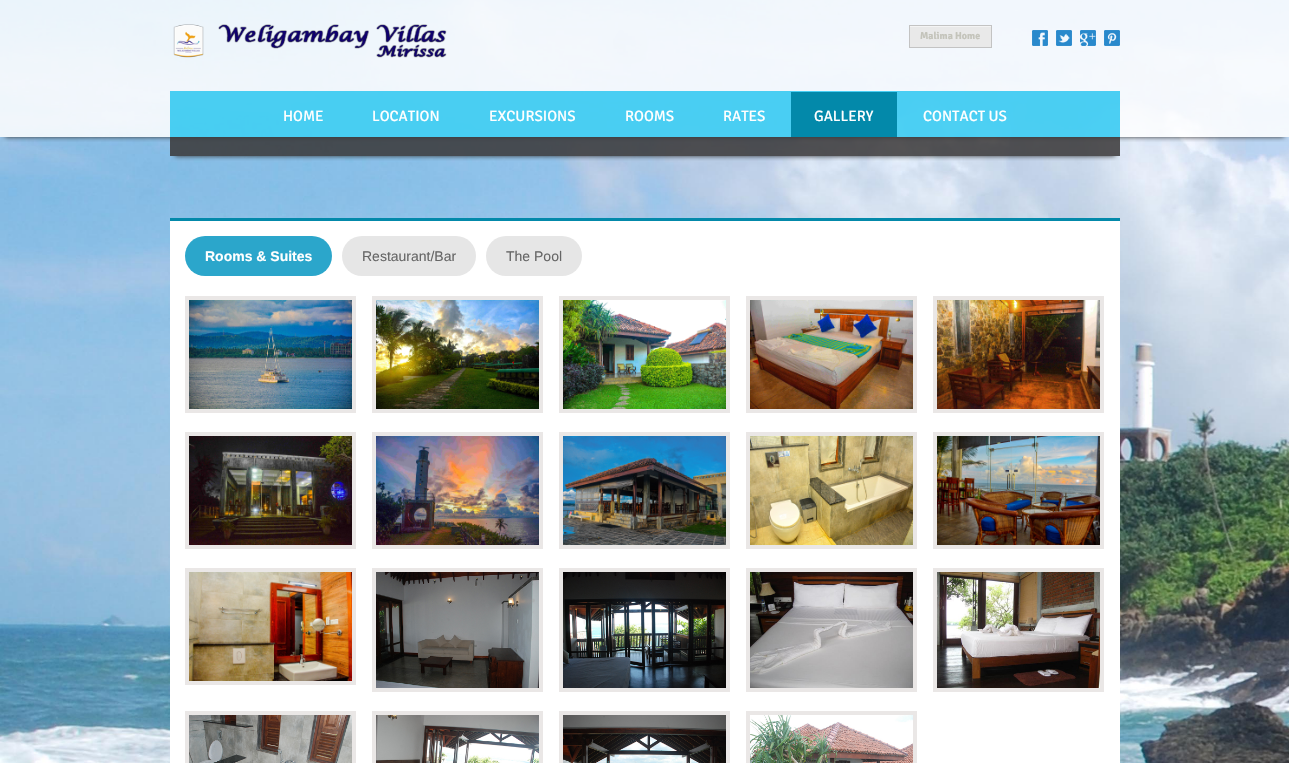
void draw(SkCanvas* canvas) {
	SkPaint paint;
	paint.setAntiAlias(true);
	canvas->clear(0xffffffff);
	canvas->drawImageRect(SkImages::DeferredFromEncodedData(SkData::MakeFromFileName("img1.png")), SkRect::MakeXYWH(0, 0, 1289, 763), SkSamplingOptions());
	paint.setColor(0xd9ffffff);
	canvas->drawRect(SkRect::MakeXYWH(0, 0, 1289, 91), paint);
	canvas->drawImageRect(SkImages::DeferredFromEncodedData(SkData::MakeFromFileName("img2.png")), SkRect::MakeXYWH(173, 24, 274, 34), SkSamplingOptions());
	paint.setColor(0xffe9e9e9);
	canvas->drawRect(SkRect::MakeXYWH(910, 27, 81, 20), paint);
	paint.setColor(0xfff4f4f4);
	canvas->drawRect(SkRect::MakeXYWH(910, 26, 81, 1), paint);
	paint.setStroke(true);
	paint.setStrokeWidth(1);
	paint.setColor(0xffc3c3c3);
	canvas->drawRect(SkRect::MakeXYWH(909.5, 25.5, 82, 22), paint);
	SkFont f1(fontMgr->matchFamilyStyle("Signika", SkFontStyle::Bold()), 10);
	f1.setSubpixel(true);
	paint.setStroke(false);
	paint.setColor(0xffc4c4bb);
	canvas->drawString("Malima Home", 920, 39, f1, paint);
	canvas->drawImageRect(SkImages::DeferredFromEncodedData(SkData::MakeFromFileName("img3.png")), SkRect::MakeXYWH(1032, 30, 16, 16), SkSamplingOptions());
	canvas->drawImageRect(SkImages::DeferredFromEncodedData(SkData::MakeFromFileName("img4.png")), SkRect::MakeXYWH(1056, 30, 16, 16), SkSamplingOptions());
	canvas->drawImageRect(SkImages::DeferredFromEncodedData(SkData::MakeFromFileName("img5.png")), SkRect::MakeXYWH(1080, 30, 16, 16), SkSamplingOptions());
	canvas->drawImageRect(SkImages::DeferredFromEncodedData(SkData::MakeFromFileName("img6.png")), SkRect::MakeXYWH(1104, 30, 16, 16), SkSamplingOptions());
	canvas->save();
	canvas->clipRect(SkRect::MakeXYWH(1, 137, 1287, 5));
	paint.setColor(0xff333333);
	paint.setMaskFilter(SkMaskFilter::MakeBlur(kNormal_SkBlurStyle, 2.5));
	canvas->drawRect(SkRect::MakeXYWH(5, 101, 1279, 36), paint);
	paint.setMaskFilter(nullptr);
	canvas->restore();
	paint.setColor(0xd9ffffff);
	canvas->drawRect(SkRect::MakeXYWH(0, 91, 1289, 46), paint);
	paint.setColor(0xb301bcee);
	canvas->drawRect(SkRect::MakeXYWH(170, 91, 950, 46), paint);
	SkFont f2(fontMgr->matchFamilyStyle("Signika", SkFontStyle::Normal()), 15);
	f2.setSubpixel(true);
	paint.setColor(0xffffffff);
	canvas->drawString("HOME", 283, 121, f2, paint);
	canvas->drawString("LOCATION", 372, 121, f2, paint);
	canvas->drawString("EXCURSIONS", 489, 121, f2, paint);
	canvas->drawString("ROOMS", 625, 121, f2, paint);
	canvas->drawString("RATES", 723, 121, f2, paint);
	paint.setColor(0xff0389aa);
	canvas->drawRect(SkRect::MakeXYWH(791, 92, 106, 45), paint);
	paint.setColor(0xffffffff);
	canvas->drawString("GALLERY", 814, 121, f2, paint);
	canvas->drawString("CONTACT US", 923, 121, f2, paint);
	canvas->save();
	canvas->clipRect(SkRect::MakeXYWH(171, 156, 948, 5));
	paint.setColor(0xff333333);
	paint.setMaskFilter(SkMaskFilter::MakeBlur(kNormal_SkBlurStyle, 2.5));
	canvas->drawRect(SkRect::MakeXYWH(175, 147, 940, 9), paint);
	paint.setMaskFilter(nullptr);
	canvas->restore();
	paint.setColor(0xd9383636);
	canvas->drawRect(SkRect::MakeXYWH(170, 137, 950, 19), paint);
	paint.setColor(0xffffffff);
	canvas->drawRect(SkRect::MakeXYWH(170, 221, 950, 542), paint);
	paint.setColor(0xff0389aa);
	canvas->drawRect(SkRect::MakeXYWH(170, 218, 950, 3), paint);
	paint.setColor(0xff2ba6cb);
	canvas->drawRoundRect(SkRect::MakeXYWH(185, 236, 147, 40), 20, 20, paint);
	SkFont f3(fontMgr->matchFamilyStyle("Liberation Sans", SkFontStyle::Bold()), 14);
	f3.setSubpixel(true);
	paint.setColor(0xffffffff);
	canvas->drawString("Rooms & Suites", 205, 261, f3, paint);
	paint.setColor(0xffe6e6e6);
	canvas->drawRoundRect(SkRect::MakeXYWH(342, 236, 134, 40), 20, 20, paint);
	SkFont f4(fontMgr->matchFamilyStyle("Liberation Sans", SkFontStyle::Normal()), 14);
	f4.setSubpixel(true);
	paint.setColor(0xff666666);
	canvas->drawString("Restaurant/Bar", 362, 261, f4, paint);
	paint.setColor(0xffe6e6e6);
	canvas->drawRoundRect(SkRect::MakeXYWH(486, 236, 96, 40), 20, 20, paint);
	paint.setColor(0xff666666);
	canvas->drawString("The Pool", 506, 261, f4, paint);
	paint.setStroke(true);
	paint.setStrokeWidth(4);
	paint.setColor(0xffeae7e6);
	canvas->drawRect(SkRect::MakeXYWH(187, 298, 167, 113), paint);
	canvas->drawImageRect(SkImages::DeferredFromEncodedData(SkData::MakeFromFileName("img7.png")), SkRect::MakeXYWH(189, 300, 163, 109), SkSamplingOptions());
	canvas->drawRect(SkRect::MakeXYWH(374, 298, 167, 113), paint);
	canvas->drawImageRect(SkImages::DeferredFromEncodedData(SkData::MakeFromFileName("img8.png")), SkRect::MakeXYWH(376, 300, 163, 109), SkSamplingOptions());
	canvas->drawRect(SkRect::MakeXYWH(561, 298, 167, 113), paint);
	canvas->drawImageRect(SkImages::DeferredFromEncodedData(SkData::MakeFromFileName("img9.png")), SkRect::MakeXYWH(563, 300, 163, 109), SkSamplingOptions());
	canvas->drawRect(SkRect::MakeXYWH(748, 298, 167, 113), paint);
	canvas->drawImageRect(SkImages::DeferredFromEncodedData(SkData::MakeFromFileName("img10.png")), SkRect::MakeXYWH(750, 300, 163, 109), SkSamplingOptions());
	canvas->drawRect(SkRect::MakeXYWH(935, 298, 167, 113), paint);
	canvas->drawImageRect(SkImages::DeferredFromEncodedData(SkData::MakeFromFileName("img11.png")), SkRect::MakeXYWH(937, 300, 163, 109), SkSamplingOptions());
	canvas->drawRect(SkRect::MakeXYWH(187, 434, 167, 113), paint);
	canvas->drawImageRect(SkImages::DeferredFromEncodedData(SkData::MakeFromFileName("img12.png")), SkRect::MakeXYWH(189, 436, 163, 109), SkSamplingOptions());
	canvas->drawRect(SkRect::MakeXYWH(374, 434, 167, 113), paint);
	canvas->drawImageRect(SkImages::DeferredFromEncodedData(SkData::MakeFromFileName("img13.png")), SkRect::MakeXYWH(376, 436, 163, 109), SkSamplingOptions());
	canvas->drawRect(SkRect::MakeXYWH(561, 434, 167, 113), paint);
	canvas->drawImageRect(SkImages::DeferredFromEncodedData(SkData::MakeFromFileName("img14.png")), SkRect::MakeXYWH(563, 436, 163, 109), SkSamplingOptions());
	canvas->drawRect(SkRect::MakeXYWH(748, 434, 167, 113), paint);
	canvas->drawImageRect(SkImages::DeferredFromEncodedData(SkData::MakeFromFileName("img15.png")), SkRect::MakeXYWH(750, 436, 163, 109), SkSamplingOptions());
	canvas->drawRect(SkRect::MakeXYWH(935, 434, 167, 113), paint);
	canvas->drawImageRect(SkImages::DeferredFromEncodedData(SkData::MakeFromFileName("img16.png")), SkRect::MakeXYWH(937, 436, 163, 109), SkSamplingOptions());
	canvas->drawRect(SkRect::MakeXYWH(187, 570, 167, 113), paint);
	canvas->drawImageRect(SkImages::DeferredFromEncodedData(SkData::MakeFromFileName("img17.png")), SkRect::MakeXYWH(189, 572, 163, 109), SkSamplingOptions());
	canvas->drawRect(SkRect::MakeXYWH(374, 570, 167, 120), paint);
	canvas->drawImageRect(SkImages::DeferredFromEncodedData(SkData::MakeFromFileName("img18.png")), SkRect::MakeXYWH(376, 572, 163, 116), SkSamplingOptions());
	canvas->drawRect(SkRect::MakeXYWH(561, 570, 167, 120), paint);
	canvas->drawImageRect(SkImages::DeferredFromEncodedData(SkData::MakeFromFileName("img19.png")), SkRect::MakeXYWH(563, 572, 163, 116), SkSamplingOptions());
	canvas->drawRect(SkRect::MakeXYWH(748, 570, 167, 120), paint);
	canvas->drawImageRect(SkImages::DeferredFromEncodedData(SkData::MakeFromFileName("img20.png")), SkRect::MakeXYWH(750, 572, 163, 116), SkSamplingOptions());
	canvas->drawRect(SkRect::MakeXYWH(935, 570, 167, 120), paint);
	canvas->drawImageRect(SkImages::DeferredFromEncodedData(SkData::MakeFromFileName("img21.png")), SkRect::MakeXYWH(937, 572, 163, 116), SkSamplingOptions());
	canvas->drawRect(SkRect::MakeXYWH(187, 713, 167, 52), paint);
	canvas->drawImageRect(SkImages::DeferredFromEncodedData(SkData::MakeFromFileName("img22.png")), SkRect::MakeXYWH(189, 715, 163, 48), SkSamplingOptions());
	canvas->drawRect(SkRect::MakeXYWH(374, 713, 167, 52), paint);
	canvas->drawImageRect(SkImages::DeferredFromEncodedData(SkData::MakeFromFileName("img23.png")), SkRect::MakeXYWH(376, 715, 163, 48), SkSamplingOptions());
	canvas->drawRect(SkRect::MakeXYWH(561, 713, 167, 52), paint);
	canvas->drawImageRect(SkImages::DeferredFromEncodedData(SkData::MakeFromFileName("img24.png")), SkRect::MakeXYWH(563, 715, 163, 48), SkSamplingOptions());
	canvas->drawRect(SkRect::MakeXYWH(748, 713, 167, 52), paint);
	canvas->drawImageRect(SkImages::DeferredFromEncodedData(SkData::MakeFromFileName("img25.png")), SkRect::MakeXYWH(750, 715, 163, 48), SkSamplingOptions());
}
